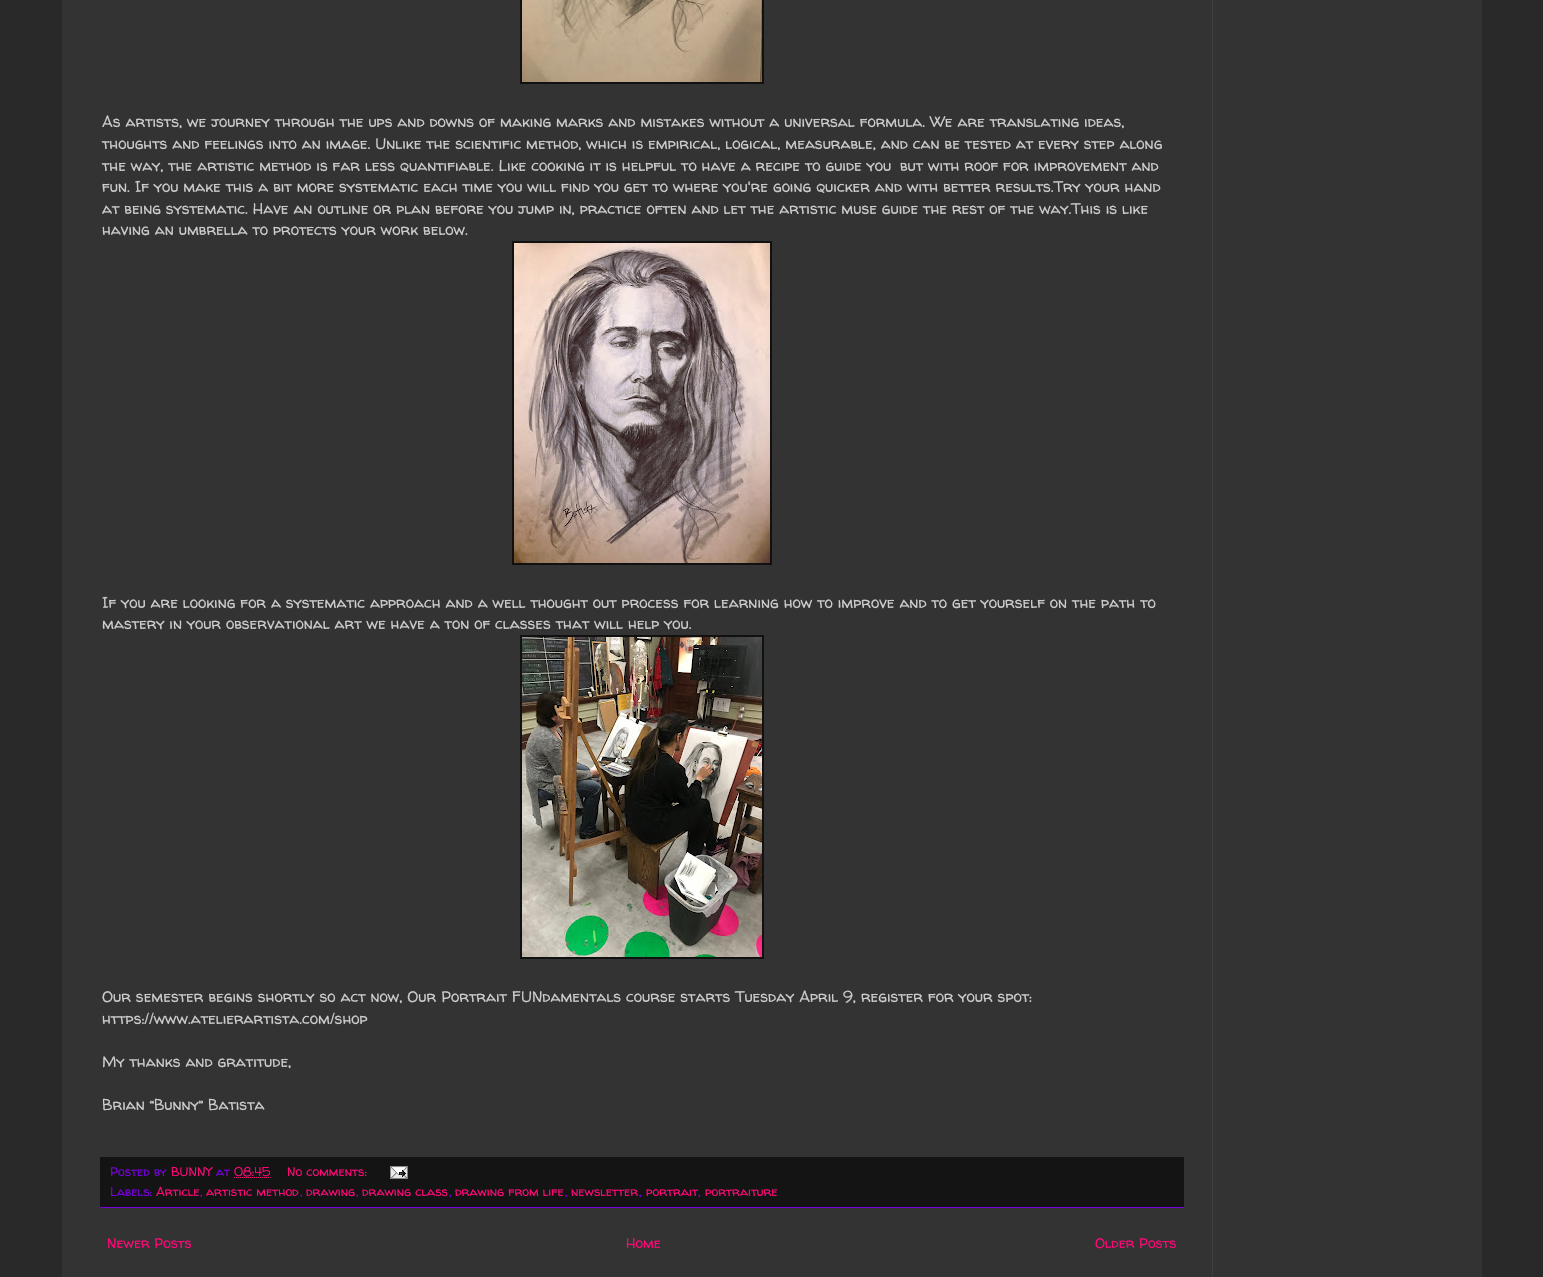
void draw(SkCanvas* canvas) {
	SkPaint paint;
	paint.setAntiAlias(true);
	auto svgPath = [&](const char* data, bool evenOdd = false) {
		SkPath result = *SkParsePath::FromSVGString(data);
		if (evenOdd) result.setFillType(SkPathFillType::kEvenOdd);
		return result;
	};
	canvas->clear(0xff292929);
	paint.setColor(0xff333333);
	canvas->drawRect(SkRect::MakeXYWH(62, 0, 1420, 1277), paint);
	paint.setColor(0xff111111);
	canvas->drawRect(SkRect::MakeXYWH(520, 0, 244, 84), paint);
	canvas->drawImageRect(SkImages::DeferredFromEncodedData(SkData::MakeFromFileName("img1.png")), SkRect::MakeXYWH(522, 0, 240, 82), SkSamplingOptions());
	SkFont f1(fontMgr->matchFamilyStyle("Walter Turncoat", SkFontStyle::Normal()), 15.4);
	f1.setSubpixel(true);
	paint.setColor(0xffcccccc);
	canvas->drawString("As artists, we journey through the ups and downs of making marks and mistakes without a universal formula. We are translating ideas,", 102, 127, f1, paint);
	canvas->drawString("thoughts and feelings into an image. Unlike the scientific method, which is empirical, logical, measurable, and can be tested at every step along", 102, 149, f1, paint);
	canvas->drawString("the way, the artistic method is far less quantifiable. Like cooking it is helpful to have a recipe to guide you", 102, 171, f1, paint);
	canvas->drawString("but with roof for improvement and", 900, 171, f1, paint);
	canvas->drawString("fun. If you make this a bit more systematic each time you will find you get to where you're going quicker and with better results.Try your hand", 102, 192, f1, paint);
	canvas->drawString("at being systematic. Have an outline or plan before you jump in, practice often and let the artistic muse guide the rest of the way.This is like", 102, 214, f1, paint);
	canvas->drawString("having an umbrella to protects your work below.", 102, 235, f1, paint);
	paint.setColor(0xff111111);
	canvas->drawRect(SkRect::MakeXYWH(512, 241, 260, 324), paint);
	canvas->drawImageRect(SkImages::DeferredFromEncodedData(SkData::MakeFromFileName("img2.png")), SkRect::MakeXYWH(514, 243, 256, 320), SkSamplingOptions());
	paint.setColor(0xffcccccc);
	canvas->drawString("If you are looking for a systematic approach and a well thought out process for learning how to improve and to get yourself on the path to", 102, 608, f1, paint);
	canvas->drawString("mastery in your observational art we have a ton of classes that will help you.", 102, 629, f1, paint);
	paint.setColor(0xff111111);
	canvas->drawRect(SkRect::MakeXYWH(520, 635, 244, 324), paint);
	canvas->drawImageRect(SkImages::DeferredFromEncodedData(SkData::MakeFromFileName("img3.png")), SkRect::MakeXYWH(522, 637, 240, 320), SkSamplingOptions());
	paint.setColor(0xffcccccc);
	canvas->drawString("Our semester begins shortly so act now, Our Portrait FUNdamentals course starts Tuesday April 9, register for your spot:", 102, 1002, f1, paint);
	canvas->drawString("https://www.atelierartista.com/shop", 102, 1024, f1, paint);
	canvas->drawString("My thanks and gratitude,", 102, 1067, f1, paint);
	canvas->drawString("Brian “Bunny” Batista", 102, 1110, f1, paint);
	paint.setColor(0xff141414);
	canvas->drawRect(SkRect::MakeXYWH(100, 1157, 1084, 50), paint);
	paint.setColor(0xff7700dd);
	canvas->drawRect(SkRect::MakeXYWH(100, 1207, 1084, 1), paint);
	SkFont f2(fontMgr->matchFamilyStyle("Walter Turncoat", SkFontStyle::Normal()), 12.5);
	f2.setSubpixel(true);
	canvas->drawString("Posted by", 110, 1176, f2, paint);
	paint.setColor(0xffff0878);
	canvas->drawString("BUNNY", 171, 1176, f2, paint);
	paint.setColor(0xff7700dd);
	canvas->drawString("at", 216, 1176, f2, paint);
	paint.setColor(0xffff0878);
	canvas->drawString("08:45", 234, 1176, f2, paint);
	paint.setStroke(true);
	paint.setStrokeWidth(1);
	paint.setPathEffect(SkDashPathEffect::Make({{1, 1}}, 0));
	canvas->drawPath(svgPath("M234 1177.5H270.5"), paint);
	paint.setPathEffect(nullptr);
	paint.setStroke(false);
	canvas->drawString("No comments:", 287, 1176, f2, paint);
	canvas->drawImageRect(SkImages::DeferredFromEncodedData(SkData::MakeFromFileName("img4.png")), SkRect::MakeXYWH(390, 1166, 18, 13), SkSamplingOptions());
	paint.setColor(0xff7700dd);
	canvas->drawString("Labels:", 110, 1196, f2, paint);
	paint.setColor(0xffff0878);
	canvas->drawString("Article", 156, 1196, f2, paint);
	paint.setColor(0xff7700dd);
	canvas->drawString(",", 200, 1196, f2, paint);
	paint.setColor(0xffff0878);
	canvas->drawString("artistic method", 206, 1196, f2, paint);
	paint.setColor(0xff7700dd);
	canvas->drawString(",", 300, 1196, f2, paint);
	paint.setColor(0xffff0878);
	canvas->drawString("drawing", 306, 1196, f2, paint);
	paint.setColor(0xff7700dd);
	canvas->drawString(",", 356, 1196, f2, paint);
	paint.setColor(0xffff0878);
	canvas->drawString("drawing class", 362, 1196, f2, paint);
	paint.setColor(0xff7700dd);
	canvas->drawString(",", 449, 1196, f2, paint);
	paint.setColor(0xffff0878);
	canvas->drawString("drawing from life", 455, 1196, f2, paint);
	paint.setColor(0xff7700dd);
	canvas->drawString(",", 565, 1196, f2, paint);
	paint.setColor(0xffff0878);
	canvas->drawString("newsletter", 571, 1196, f2, paint);
	paint.setColor(0xff7700dd);
	canvas->drawString(",", 639, 1196, f2, paint);
	paint.setColor(0xffff0878);
	canvas->drawString("portrait", 646, 1196, f2, paint);
	paint.setColor(0xff7700dd);
	canvas->drawString(",", 698, 1196, f2, paint);
	paint.setColor(0xffff0878);
	canvas->drawString("portraiture", 705, 1196, f2, paint);
	SkFont f3(fontMgr->matchFamilyStyle("Walter Turncoat", SkFontStyle::Normal()), 14);
	f3.setSubpixel(true);
	canvas->drawString("Newer Posts", 107, 1248, f3, paint);
	canvas->drawString("Home", 626, 1248, f3, paint);
	canvas->drawString("Older Posts", 1095, 1248, f3, paint);
	paint.setColor(0xff404040);
	canvas->drawRect(SkRect::MakeXYWH(1212, 0, 1, 1277), paint);
}
